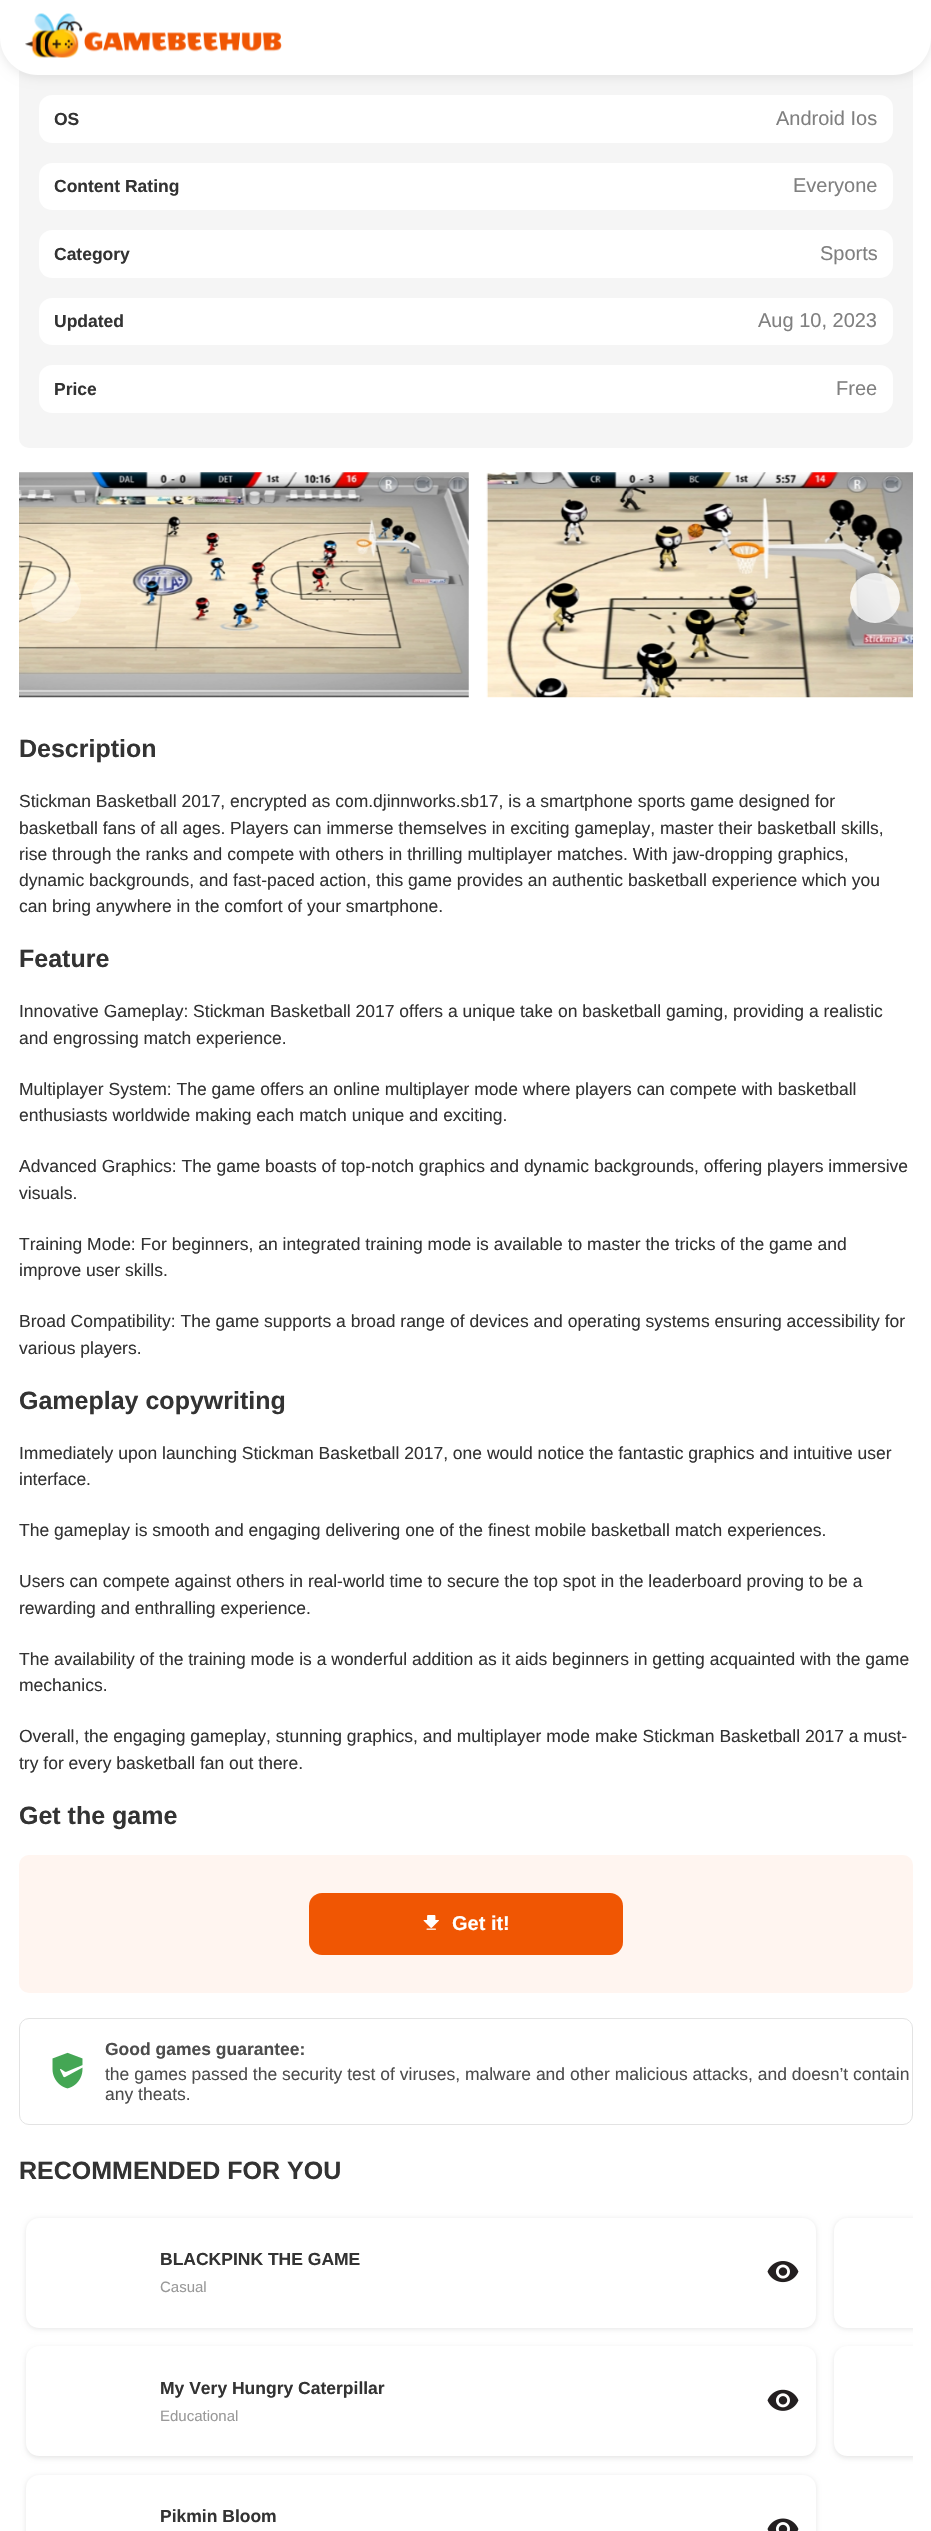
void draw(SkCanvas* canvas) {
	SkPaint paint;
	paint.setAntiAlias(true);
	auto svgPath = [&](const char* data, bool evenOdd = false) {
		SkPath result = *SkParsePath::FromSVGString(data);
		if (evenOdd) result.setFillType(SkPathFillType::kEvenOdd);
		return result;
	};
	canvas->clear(0xffffffff);
	paint.setColor(0xfff5f5f5);
	canvas->drawRoundRect(SkRect::MakeXYWH(19, -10, 894, 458), 10, 10, paint);
	paint.setColor(0x1a000000);
	paint.setMaskFilter(SkMaskFilter::MakeBlur(kNormal_SkBlurStyle, 6));
	canvas->drawRoundRect(SkRect::MakeXYWH(0, 1, 931, 75), 37.5, 37.5, paint);
	paint.setMaskFilter(nullptr);
	paint.setColor(0xffffffff);
	canvas->drawPath(svgPath("M0 0H931V37.5C931 58 914 75 893.5 75H37.5C17 75 0 58 0 37.5Z"), paint);
	canvas->drawImageRect(SkImages::DeferredFromEncodedData(SkData::MakeFromFileName("img1.png")), SkRect::MakeXYWH(25, 13, 257, 45), SkSamplingOptions());
	canvas->drawRoundRect(SkRect::MakeXYWH(39, 95, 854, 48), 13, 13, paint);
	SkFont f1(fontMgr->matchFamilyStyle("Liberation Sans", SkFontStyle::Bold()), 17.5);
	f1.setSubpixel(true);
	paint.setColor(0xff333333);
	canvas->drawString("OS", 54, 125, f1, paint);
	SkFont f2(fontMgr->matchFamilyStyle("Liberation Sans", SkFontStyle::Normal()), 20);
	f2.setSubpixel(true);
	paint.setColor(0xff808080);
	canvas->drawString("Android Ios", 776, 125, f2, paint);
	paint.setColor(0xffffffff);
	canvas->drawRoundRect(SkRect::MakeXYWH(39, 163, 854, 47), 13, 13, paint);
	paint.setColor(0xff333333);
	canvas->drawString("Content Rating", 54, 192, f1, paint);
	paint.setColor(0xff808080);
	canvas->drawString("Everyone", 793, 192, f2, paint);
	paint.setColor(0xffffffff);
	canvas->drawRoundRect(SkRect::MakeXYWH(39, 230, 854, 48), 13, 13, paint);
	paint.setColor(0xff333333);
	canvas->drawString("Category", 54, 260, f1, paint);
	paint.setColor(0xff808080);
	canvas->drawString("Sports", 820, 260, f2, paint);
	paint.setColor(0xffffffff);
	canvas->drawRoundRect(SkRect::MakeXYWH(39, 298, 854, 47), 13, 13, paint);
	paint.setColor(0xff333333);
	canvas->drawString("Updated", 54, 327, f1, paint);
	paint.setColor(0xff808080);
	canvas->drawString("Aug 10, 2023", 758, 327, f2, paint);
	paint.setColor(0xffffffff);
	canvas->drawRoundRect(SkRect::MakeXYWH(39, 365, 854, 48), 13, 13, paint);
	paint.setColor(0xff333333);
	canvas->drawString("Price", 54, 395, f1, paint);
	paint.setColor(0xff808080);
	canvas->drawString("Free", 836, 395, f2, paint);
	canvas->drawImageRect(SkImages::DeferredFromEncodedData(SkData::MakeFromFileName("img2.png")), SkRect::MakeXYWH(19, 472, 450, 226), SkSamplingOptions());
	canvas->drawImageRect(SkImages::DeferredFromEncodedData(SkData::MakeFromFileName("img3.png")), SkRect::MakeXYWH(486, 472, 427, 226), SkSamplingOptions());
	paint.setColor(0x47ffffff);
	canvas->drawCircle(56, 598, 25, paint);
	paint.setColor(0xccffffff);
	canvas->drawCircle(875, 598, 25, paint);
	SkFont f3(fontMgr->matchFamilyStyle("Liberation Sans", SkFontStyle::Bold()), 25);
	f3.setSubpixel(true);
	paint.setColor(0xff333333);
	canvas->drawString("Description", 19, 757, f3, paint);
	SkFont f4(fontMgr->matchFamilyStyle("Liberation Sans", SkFontStyle::Normal()), 17.5);
	f4.setSubpixel(true);
	canvas->drawString("Stickman Basketball 2017, encrypted as com.djinnworks.sb17, is a smartphone sports game designed for", 19, 807, f4, paint);
	canvas->drawString("basketball fans of all ages. Players can immerse themselves in exciting gameplay, master their basketball skills,", 19, 834, f4, paint);
	canvas->drawString("rise through the ranks and compete with others in thrilling multiplayer matches. With jaw-dropping graphics,", 19, 860, f4, paint);
	canvas->drawString("dynamic backgrounds, and fast-paced action, this game provides an authentic basketball experience which you", 19, 886, f4, paint);
	canvas->drawString("can bring anywhere in the comfort of your smartphone.", 19, 912, f4, paint);
	canvas->drawString("Feature", 19, 967, f3, paint);
	canvas->drawString("Innovative Gameplay: Stickman Basketball 2017 offers a unique take on basketball gaming, providing a realistic", 19, 1017, f4, paint);
	canvas->drawString("and engrossing match experience.", 19, 1044, f4, paint);
	canvas->drawString("Multiplayer System: The game offers an online multiplayer mode where players can compete with basketball", 19, 1095, f4, paint);
	canvas->drawString("enthusiasts worldwide making each match unique and exciting.", 19, 1121, f4, paint);
	canvas->drawString("Advanced Graphics: The game boasts of top-notch graphics and dynamic backgrounds, offering players immersive", 19, 1172, f4, paint);
	canvas->drawString("visuals.", 19, 1199, f4, paint);
	canvas->drawString("Training Mode: For beginners, an integrated training mode is available to master the tricks of the game and", 19, 1250, f4, paint);
	canvas->drawString("improve user skills.", 19, 1276, f4, paint);
	canvas->drawString("Broad Compatibility: The game supports a broad range of devices and operating systems ensuring accessibility for", 19, 1327, f4, paint);
	canvas->drawString("various players.", 19, 1354, f4, paint);
	canvas->drawString("Gameplay copywriting", 19, 1409, f3, paint);
	canvas->drawString("Immediately upon launching Stickman Basketball 2017, one would notice the fantastic graphics and intuitive user", 19, 1459, f4, paint);
	canvas->drawString("interface.", 19, 1485, f4, paint);
	canvas->drawString("The gameplay is smooth and engaging delivering one of the finest mobile basketball match experiences.", 19, 1536, f4, paint);
	canvas->drawString("Users can compete against others in real-world time to secure the top spot in the leaderboard proving to be a", 19, 1587, f4, paint);
	canvas->drawString("rewarding and enthralling experience.", 19, 1614, f4, paint);
	canvas->drawString("The availability of the training mode is a wonderful addition as it aids beginners in getting acquainted with the game", 19, 1665, f4, paint);
	canvas->drawString("mechanics.", 19, 1691, f4, paint);
	canvas->drawString("Overall, the engaging gameplay, stunning graphics, and multiplayer mode make Stickman Basketball 2017 a must-", 19, 1742, f4, paint);
	canvas->drawString("try for every basketball fan out there.", 19, 1769, f4, paint);
	canvas->drawString("Get the game", 19, 1824, f3, paint);
	paint.setColor(0xfffff5f0);
	canvas->drawRoundRect(SkRect::MakeXYWH(19, 1855, 894, 138), 10, 10, paint);
	paint.setColor(0xfff05603);
	canvas->drawRoundRect(SkRect::MakeXYWH(309, 1893, 314, 62), 13, 13, paint);
	canvas->drawImageRect(SkImages::DeferredFromEncodedData(SkData::MakeFromFileName("img4.png")), SkRect::MakeXYWH(423, 1915, 16, 15), SkSamplingOptions());
	SkFont f5(fontMgr->matchFamilyStyle("Liberation Sans", SkFontStyle::Bold()), 20);
	f5.setSubpixel(true);
	paint.setColor(0xffffffff);
	canvas->drawString("Get it!", 452, 1930, f5, paint);
	paint.setStroke(true);
	paint.setStrokeWidth(1);
	paint.setColor(0xffe3e3e3);
	canvas->drawRoundRect(SkRect::MakeXYWH(19.5, 2018.5, 893, 106), 9.5, 9.5, paint);
	canvas->drawImageRect(SkImages::DeferredFromEncodedData(SkData::MakeFromFileName("img5.png")), SkRect::MakeXYWH(52, 2052, 31, 37), SkSamplingOptions());
	paint.setStroke(false);
	paint.setColor(0xff4d4d4d);
	canvas->drawString("Good games guarantee:", 105, 2055, f1, paint);
	canvas->drawString("the games passed the security test of viruses, malware and other malicious attacks, and doesn’t contain", 105, 2080, f4, paint);
	canvas->drawString("any theats.", 105, 2100, f4, paint);
	paint.setColor(0xff333333);
	canvas->drawString("RECOMMENDED FOR YOU", 19, 2179, f3, paint);
	paint.setColor(0x1a000000);
	paint.setMaskFilter(SkMaskFilter::MakeBlur(kNormal_SkBlurStyle, 2.5));
	canvas->drawRoundRect(SkRect::MakeXYWH(26, 2219, 790, 110), 13, 13, paint);
	paint.setMaskFilter(nullptr);
	paint.setColor(0xffffffff);
	canvas->drawRoundRect(SkRect::MakeXYWH(26, 2218, 790, 110), 13, 13, paint);
	paint.setColor(0xff333333);
	canvas->drawString("BLACKPINK THE GAME", 160, 2265, f1, paint);
	SkFont f6(fontMgr->matchFamilyStyle("Liberation Sans", SkFontStyle::Normal()), 15);
	f6.setSubpixel(true);
	paint.setColor(0xff999999);
	canvas->drawString("Casual", 160, 2292, f6, paint);
	canvas->drawImageRect(SkImages::DeferredFromEncodedData(SkData::MakeFromFileName("img6.png")), SkRect::MakeXYWH(767, 2261, 32, 22), SkSamplingOptions());
	paint.setColor(0x1a000000);
	paint.setMaskFilter(SkMaskFilter::MakeBlur(kNormal_SkBlurStyle, 2.5));
	canvas->drawRoundRect(SkRect::MakeXYWH(26, 2348, 790, 110), 13, 13, paint);
	paint.setMaskFilter(nullptr);
	paint.setColor(0xffffffff);
	canvas->drawRoundRect(SkRect::MakeXYWH(26, 2346, 790, 110), 13, 13, paint);
	paint.setColor(0xff333333);
	canvas->drawString("My Very Hungry Caterpillar", 160, 2394, f1, paint);
	paint.setColor(0xff999999);
	canvas->drawString("Educational", 160, 2421, f6, paint);
	canvas->drawImageRect(SkImages::DeferredFromEncodedData(SkData::MakeFromFileName("img7.png")), SkRect::MakeXYWH(767, 2389, 32, 22), SkSamplingOptions());
	paint.setColor(0x1a000000);
	paint.setMaskFilter(SkMaskFilter::MakeBlur(kNormal_SkBlurStyle, 2.5));
	canvas->drawRoundRect(SkRect::MakeXYWH(26, 2476, 790, 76), 13, 13, paint);
	paint.setMaskFilter(nullptr);
	paint.setColor(0xffffffff);
	canvas->drawRoundRect(SkRect::MakeXYWH(26, 2475, 790, 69), 13, 13, paint);
	paint.setColor(0xff333333);
	canvas->drawString("Pikmin Bloom", 160, 2522, f1, paint);
	canvas->drawImageRect(SkImages::DeferredFromEncodedData(SkData::MakeFromFileName("img8.png")), SkRect::MakeXYWH(767, 2518, 32, 13), SkSamplingOptions());
	canvas->save();
	canvas->clipRect(SkRect::MakeXYWH(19, 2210, 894, 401));
	paint.setColor(0x1a000000);
	paint.setMaskFilter(SkMaskFilter::MakeBlur(kNormal_SkBlurStyle, 2.5));
	canvas->drawRoundRect(SkRect::MakeXYWH(834, 2219, 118, 110), 13, 13, paint);
	paint.setMaskFilter(nullptr);
	canvas->restore();
	paint.setColor(0xffffffff);
	canvas->drawPath(svgPath("M847 2218H913V2328H847C840 2328 834 2322 834 2315V2231C834 2224 840 2218 847 2218Z"), paint);
	canvas->save();
	canvas->clipRect(SkRect::MakeXYWH(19, 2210, 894, 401));
	paint.setColor(0x1a000000);
	paint.setMaskFilter(SkMaskFilter::MakeBlur(kNormal_SkBlurStyle, 2.5));
	canvas->drawRoundRect(SkRect::MakeXYWH(834, 2348, 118, 110), 13, 13, paint);
	paint.setMaskFilter(nullptr);
	canvas->restore();
	paint.setColor(0xffffffff);
	canvas->drawPath(svgPath("M847 2346H913V2456H847C840 2456 834 2450 834 2443V2359C834 2352 840 2346 847 2346Z"), paint);
}
